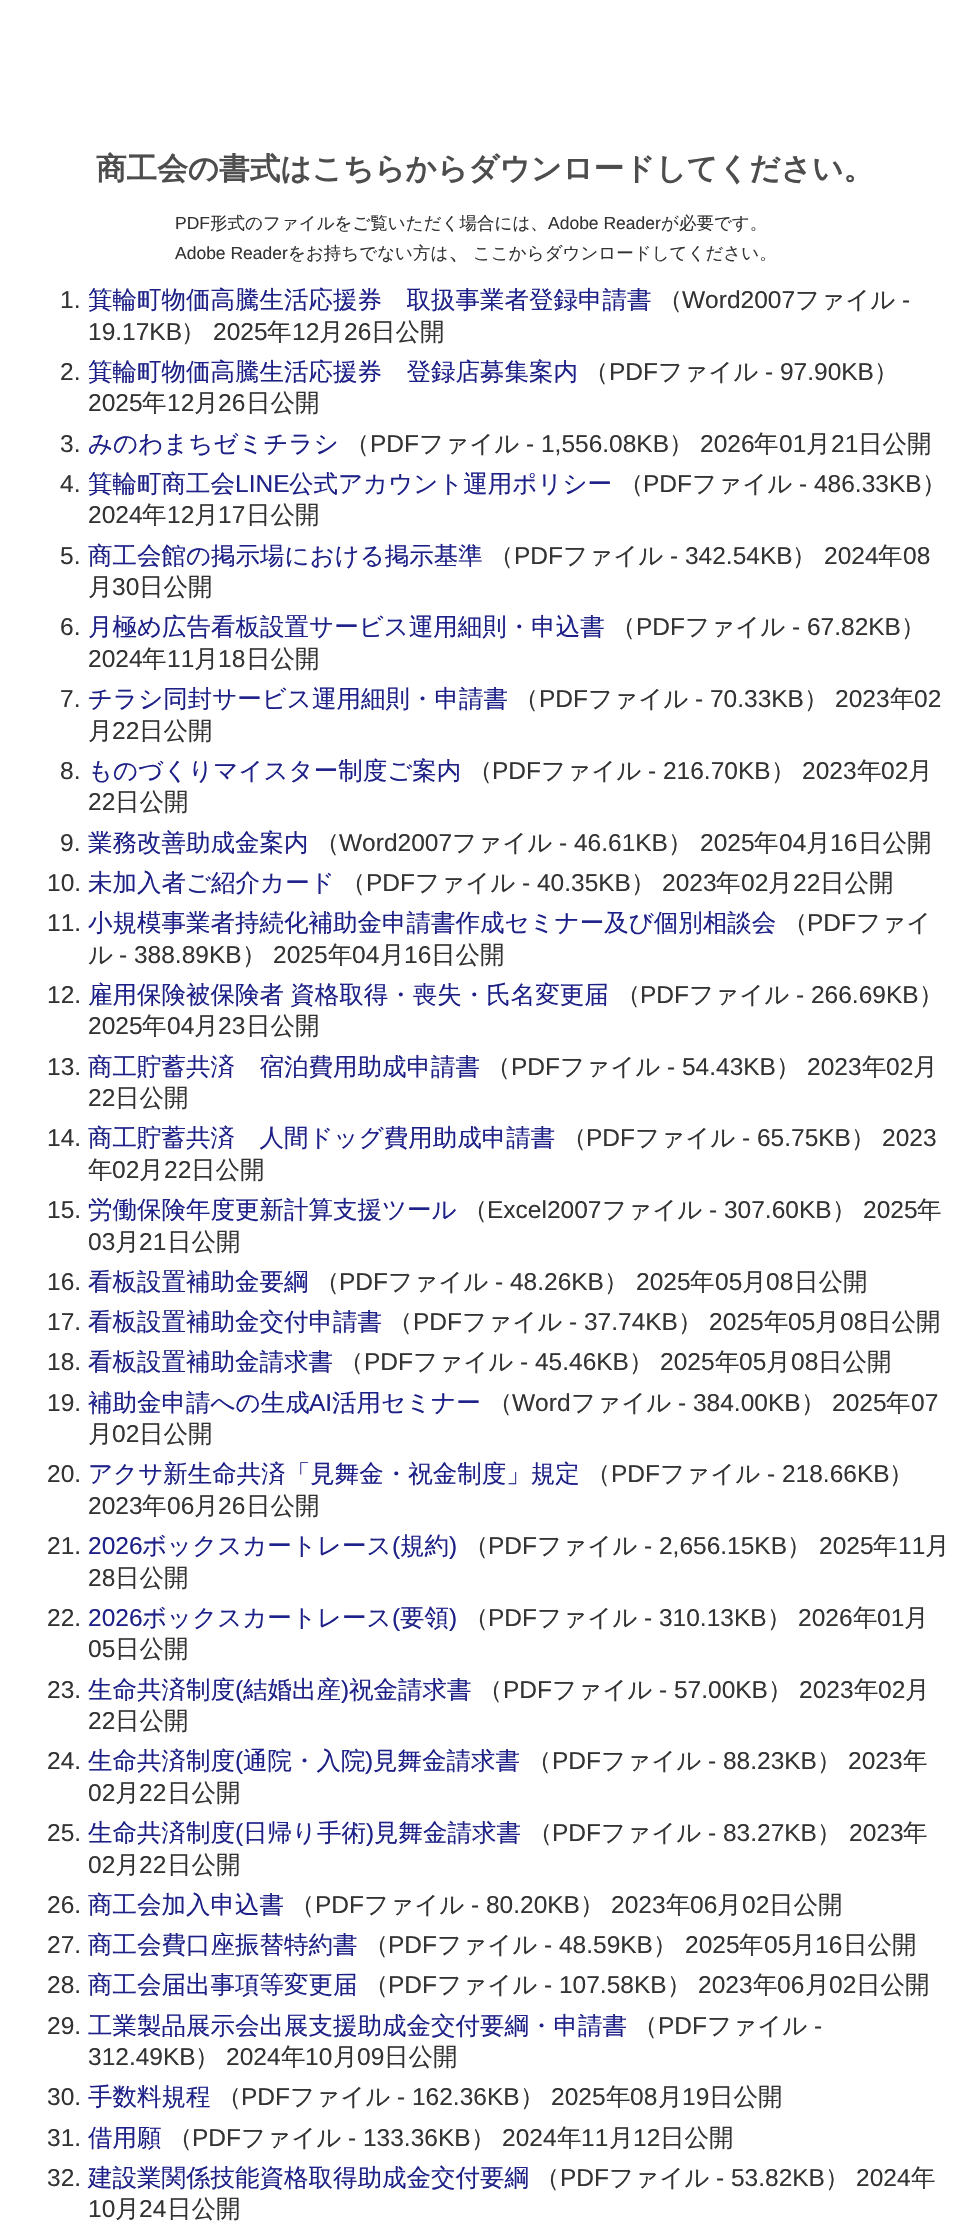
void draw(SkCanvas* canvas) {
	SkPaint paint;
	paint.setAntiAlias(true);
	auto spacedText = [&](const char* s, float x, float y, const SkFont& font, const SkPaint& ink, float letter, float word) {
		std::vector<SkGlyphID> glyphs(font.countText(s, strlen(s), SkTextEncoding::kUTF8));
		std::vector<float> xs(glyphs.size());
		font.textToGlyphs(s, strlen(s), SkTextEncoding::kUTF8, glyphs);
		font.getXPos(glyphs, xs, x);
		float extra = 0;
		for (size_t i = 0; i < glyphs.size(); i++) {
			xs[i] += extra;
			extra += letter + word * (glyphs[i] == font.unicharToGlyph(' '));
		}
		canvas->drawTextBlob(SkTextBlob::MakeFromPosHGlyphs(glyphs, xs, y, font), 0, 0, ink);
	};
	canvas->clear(0xffffffff);
	SkFont f1(fontMgr->matchFamilyStyle("WenQuanYi Zen Hei", SkFontStyle::Bold()), 30.6);
	f1.setSubpixel(true);
	paint.setColor(0xff4d4d4d);
	canvas->drawString("商工会の書式はこちらからダウンロードしてください。", 96, 179, f1, paint);
	SkFont f2(fontMgr->matchFamilyStyle("Liberation Sans", SkFontStyle::Normal()), 17.5);
	f2.setSubpixel(true);
	paint.setColor(0xff333333);
	canvas->drawString("PDF", 175, 229, f2, paint);
	SkFont f3(fontMgr->matchFamilyStyle("WenQuanYi Zen Hei", SkFontStyle(500, SkFontStyle::kNormal_Width, SkFontStyle::kUpright_Slant)), 17.5);
	f3.setSubpixel(true);
	canvas->drawString("形式のファイルをご覧いただく場合には、", 210, 229, f3, paint);
	canvas->drawString("Adobe Reader", 548, 229, f2, paint);
	canvas->drawString("が必要です。", 661, 229, f3, paint);
	canvas->drawString("Adobe Reader", 175, 259, f2, paint);
	canvas->drawString("をお持ちでない方は", 288, 259, f3, paint);
	SkFont f4(fontMgr->matchFamilyStyle("WenQuanYi Zen Hei", SkFontStyle(500, SkFontStyle::kNormal_Width, SkFontStyle::kUpright_Slant)), 24.5);
	f4.setSubpixel(true);
	canvas->drawString("、", 448, 259, f4, paint);
	canvas->drawString("ここからダウンロードしてください。", 473, 259, f3, paint);
	SkFont f5(fontMgr->matchFamilyStyle("Liberation Sans", SkFontStyle::Normal()), 24.5);
	f5.setSubpixel(true);
	canvas->drawString("1.", 60, 308, f5, paint);
	paint.setColor(0xff1d2087);
	canvas->drawString("箕輪町物価高騰生活応援券　取扱事業者登録申請書", 88, 308, f4, paint);
	paint.setColor(0xff333333);
	canvas->drawString("（", 658, 308, f4, paint);
	canvas->drawString("Word2007", 682, 308, f5, paint);
	canvas->drawString("ファイル", 795, 308, f4, paint);
	canvas->drawString("-", 902, 308, f5, paint);
	canvas->drawString("19.17KB", 88, 340, f5, paint);
	canvas->drawString("）", 181, 340, f4, paint);
	canvas->drawString("2025", 213, 340, f5, paint);
	canvas->drawString("年", 267, 340, f4, paint);
	canvas->drawString("12", 292, 340, f5, paint);
	canvas->drawString("月", 319, 340, f4, paint);
	canvas->drawString("26", 344, 340, f5, paint);
	canvas->drawString("日公開", 371, 340, f4, paint);
	canvas->drawString("2.", 60, 380, f5, paint);
	paint.setColor(0xff1d2087);
	canvas->drawString("箕輪町物価高騰生活応援券　登録店募集案内", 88, 380, f4, paint);
	paint.setColor(0xff333333);
	canvas->drawString("（", 584, 380, f4, paint);
	canvas->drawString("PDF", 609, 380, f5, paint);
	canvas->drawString("ファイル", 658, 380, f4, paint);
	canvas->drawString("- 97.90KB", 765, 380, f5, paint);
	canvas->drawString("）", 874, 380, f4, paint);
	canvas->drawString("2025", 88, 411, f5, paint);
	canvas->drawString("年", 142, 411, f4, paint);
	canvas->drawString("12", 167, 411, f5, paint);
	canvas->drawString("月", 194, 411, f4, paint);
	canvas->drawString("26", 218, 411, f5, paint);
	canvas->drawString("日公開", 246, 411, f4, paint);
	canvas->drawString("3.", 60, 452, f5, paint);
	paint.setColor(0xff1d2087);
	canvas->drawString("みのわまちゼミチラシ", 88, 452, f4, paint);
	paint.setColor(0xff333333);
	canvas->drawString("（", 345, 452, f4, paint);
	canvas->drawString("PDF", 370, 452, f5, paint);
	canvas->drawString("ファイル", 419, 452, f4, paint);
	canvas->drawString("- 1,556.08KB", 526, 452, f5, paint);
	canvas->drawString("）", 669, 452, f4, paint);
	canvas->drawString("2026", 700, 452, f5, paint);
	canvas->drawString("年", 754, 452, f4, paint);
	canvas->drawString("01", 779, 452, f5, paint);
	canvas->drawString("月", 806, 452, f4, paint);
	canvas->drawString("21", 831, 452, f5, paint);
	canvas->drawString("日公開", 858, 452, f4, paint);
	canvas->drawString("4.", 60, 492, f5, paint);
	paint.setColor(0xff1d2087);
	canvas->drawString("箕輪町商工会", 88, 492, f4, paint);
	canvas->drawString("LINE", 235, 492, f5, paint);
	canvas->drawString("公式アカウント運用ポリシー", 289, 492, f4, paint);
	paint.setColor(0xff333333);
	canvas->drawString("（", 619, 492, f4, paint);
	canvas->drawString("PDF", 643, 492, f5, paint);
	canvas->drawString("ファイル", 692, 492, f4, paint);
	canvas->drawString("- 486.33KB", 799, 492, f5, paint);
	canvas->drawString("）", 922, 492, f4, paint);
	canvas->drawString("2024", 88, 523, f5, paint);
	canvas->drawString("年", 142, 523, f4, paint);
	canvas->drawString("12", 167, 523, f5, paint);
	canvas->drawString("月", 194, 523, f4, paint);
	canvas->drawString("17", 218, 523, f5, paint);
	canvas->drawString("日公開", 246, 523, f4, paint);
	canvas->drawString("5.", 60, 564, f5, paint);
	paint.setColor(0xff1d2087);
	canvas->drawString("商工会館の掲示場における掲示基準", 88, 564, f4, paint);
	paint.setColor(0xff333333);
	canvas->drawString("（", 489, 564, f4, paint);
	canvas->drawString("PDF", 514, 564, f5, paint);
	canvas->drawString("ファイル", 563, 564, f4, paint);
	canvas->drawString("- 342.54KB", 670, 564, f5, paint);
	canvas->drawString("）", 792, 564, f4, paint);
	canvas->drawString("2024", 824, 564, f5, paint);
	canvas->drawString("年", 878, 564, f4, paint);
	canvas->drawString("08", 903, 564, f5, paint);
	canvas->drawString("月", 88, 595, f4, paint);
	canvas->drawString("30", 112, 595, f5, paint);
	canvas->drawString("日公開", 139, 595, f4, paint);
	canvas->drawString("6.", 60, 635, f5, paint);
	paint.setColor(0xff1d2087);
	canvas->drawString("月極め広告看板設置サービス運用細則・申込書", 88, 635, f4, paint);
	paint.setColor(0xff333333);
	canvas->drawString("（", 611, 635, f4, paint);
	canvas->drawString("PDF", 636, 635, f5, paint);
	canvas->drawString("ファイル", 685, 635, f4, paint);
	canvas->drawString("- 67.82KB", 792, 635, f5, paint);
	canvas->drawString("）", 901, 635, f4, paint);
	canvas->drawString("2024", 88, 667, f5, paint);
	canvas->drawString("年", 142, 667, f4, paint);
	canvas->drawString("11", 167, 667, f5, paint);
	canvas->drawString("月", 194, 667, f4, paint);
	canvas->drawString("18", 218, 667, f5, paint);
	canvas->drawString("日公開", 246, 667, f4, paint);
	canvas->drawString("7.", 60, 707, f5, paint);
	paint.setColor(0xff1d2087);
	canvas->drawString("チラシ同封サービス運用細則・申請書", 88, 707, f4, paint);
	paint.setColor(0xff333333);
	canvas->drawString("（", 514, 707, f4, paint);
	canvas->drawString("PDF", 539, 707, f5, paint);
	canvas->drawString("ファイル", 588, 707, f4, paint);
	canvas->drawString("- 70.33KB", 695, 707, f5, paint);
	canvas->drawString("）", 804, 707, f4, paint);
	canvas->drawString("2023", 835, 707, f5, paint);
	canvas->drawString("年", 890, 707, f4, paint);
	canvas->drawString("02", 914, 707, f5, paint);
	canvas->drawString("月", 88, 739, f4, paint);
	canvas->drawString("22", 112, 739, f5, paint);
	canvas->drawString("日公開", 139, 739, f4, paint);
	canvas->drawString("8.", 60, 779, f5, paint);
	paint.setColor(0xff1d2087);
	canvas->drawString("ものづくりマイスター制度ご案内", 88, 779, f4, paint);
	paint.setColor(0xff333333);
	canvas->drawString("（", 468, 779, f4, paint);
	canvas->drawString("PDF", 492, 779, f5, paint);
	canvas->drawString("ファイル", 541, 779, f4, paint);
	canvas->drawString("- 216.70KB", 648, 779, f5, paint);
	canvas->drawString("）", 771, 779, f4, paint);
	canvas->drawString("2023", 802, 779, f5, paint);
	canvas->drawString("年", 857, 779, f4, paint);
	canvas->drawString("02", 881, 779, f5, paint);
	canvas->drawString("月", 908, 779, f4, paint);
	canvas->drawString("22", 88, 810, f5, paint);
	canvas->drawString("日公開", 115, 810, f4, paint);
	canvas->drawString("9.", 60, 851, f5, paint);
	paint.setColor(0xff1d2087);
	canvas->drawString("業務改善助成金案内", 88, 851, f4, paint);
	paint.setColor(0xff333333);
	canvas->drawString("（", 315, 851, f4, paint);
	canvas->drawString("Word2007", 339, 851, f5, paint);
	canvas->drawString("ファイル", 452, 851, f4, paint);
	canvas->drawString("- 46.61KB", 559, 851, f5, paint);
	canvas->drawString("）", 668, 851, f4, paint);
	canvas->drawString("2025", 700, 851, f5, paint);
	canvas->drawString("年", 754, 851, f4, paint);
	canvas->drawString("04", 779, 851, f5, paint);
	canvas->drawString("月", 806, 851, f4, paint);
	canvas->drawString("16", 830, 851, f5, paint);
	canvas->drawString("日公開", 858, 851, f4, paint);
	canvas->drawString("10.", 47, 891, f5, paint);
	paint.setColor(0xff1d2087);
	canvas->drawString("未加入者ご紹介カード", 88, 891, f4, paint);
	paint.setColor(0xff333333);
	canvas->drawString("（", 341, 891, f4, paint);
	canvas->drawString("PDF", 366, 891, f5, paint);
	canvas->drawString("ファイル", 415, 891, f4, paint);
	canvas->drawString("- 40.35KB", 522, 891, f5, paint);
	canvas->drawString("）", 631, 891, f4, paint);
	canvas->drawString("2023", 662, 891, f5, paint);
	canvas->drawString("年", 716, 891, f4, paint);
	canvas->drawString("02", 741, 891, f5, paint);
	canvas->drawString("月", 768, 891, f4, paint);
	canvas->drawString("22", 793, 891, f5, paint);
	canvas->drawString("日公開", 820, 891, f4, paint);
	canvas->drawString("11.", 47, 931, f5, paint);
	paint.setColor(0xff1d2087);
	canvas->drawString("小規模事業者持続化補助金申請書作成セミナー及び個別相談会", 88, 931, f4, paint);
	paint.setColor(0xff333333);
	canvas->drawString("（", 783, 931, f4, paint);
	canvas->drawString("PDF", 807, 931, f5, paint);
	canvas->drawString("ファイ", 856, 931, f4, paint);
	canvas->drawString("ル", 88, 963, f4, paint);
	canvas->drawString("- 388.89KB", 119, 963, f5, paint);
	canvas->drawString("）", 242, 963, f4, paint);
	canvas->drawString("2025", 273, 963, f5, paint);
	canvas->drawString("年", 328, 963, f4, paint);
	canvas->drawString("04", 352, 963, f5, paint);
	canvas->drawString("月", 380, 963, f4, paint);
	canvas->drawString("16", 404, 963, f5, paint);
	canvas->drawString("日公開", 431, 963, f4, paint);
	canvas->drawString("12.", 47, 1003, f5, paint);
	paint.setColor(0xff1d2087);
	spacedText("雇用保険被保険者 資格取得・喪失・氏名変更届", 88, 1003, f4, paint, 0, -1);
	paint.setColor(0xff333333);
	canvas->drawString("（", 616, 1003, f4, paint);
	canvas->drawString("PDF", 640, 1003, f5, paint);
	canvas->drawString("ファイル", 689, 1003, f4, paint);
	canvas->drawString("- 266.69KB", 796, 1003, f5, paint);
	canvas->drawString("）", 919, 1003, f4, paint);
	canvas->drawString("2025", 88, 1034, f5, paint);
	canvas->drawString("年", 142, 1034, f4, paint);
	canvas->drawString("04", 167, 1034, f5, paint);
	canvas->drawString("月", 194, 1034, f4, paint);
	canvas->drawString("23", 218, 1034, f5, paint);
	canvas->drawString("日公開", 246, 1034, f4, paint);
	canvas->drawString("13.", 47, 1075, f5, paint);
	paint.setColor(0xff1d2087);
	canvas->drawString("商工貯蓄共済　宿泊費用助成申請書", 88, 1075, f4, paint);
	paint.setColor(0xff333333);
	canvas->drawString("（", 486, 1075, f4, paint);
	canvas->drawString("PDF", 511, 1075, f5, paint);
	canvas->drawString("ファイル", 560, 1075, f4, paint);
	canvas->drawString("- 54.43KB", 667, 1075, f5, paint);
	canvas->drawString("）", 776, 1075, f4, paint);
	canvas->drawString("2023", 807, 1075, f5, paint);
	canvas->drawString("年", 862, 1075, f4, paint);
	canvas->drawString("02", 886, 1075, f5, paint);
	canvas->drawString("月", 913, 1075, f4, paint);
	canvas->drawString("22", 88, 1106, f5, paint);
	canvas->drawString("日公開", 115, 1106, f4, paint);
	canvas->drawString("14.", 47, 1146, f5, paint);
	paint.setColor(0xff1d2087);
	canvas->drawString("商工貯蓄共済　人間ドッグ費用助成申請書", 88, 1146, f4, paint);
	paint.setColor(0xff333333);
	canvas->drawString("（", 562, 1146, f4, paint);
	canvas->drawString("PDF", 586, 1146, f5, paint);
	canvas->drawString("ファイル", 635, 1146, f4, paint);
	canvas->drawString("- 65.75KB", 742, 1146, f5, paint);
	canvas->drawString("）", 851, 1146, f4, paint);
	canvas->drawString("2023", 882, 1146, f5, paint);
	canvas->drawString("年", 88, 1178, f4, paint);
	canvas->drawString("02", 112, 1178, f5, paint);
	canvas->drawString("月", 139, 1178, f4, paint);
	canvas->drawString("22", 164, 1178, f5, paint);
	canvas->drawString("日公開", 191, 1178, f4, paint);
	canvas->drawString("15.", 47, 1218, f5, paint);
	paint.setColor(0xff1d2087);
	canvas->drawString("労働保険年度更新計算支援ツール", 88, 1218, f4, paint);
	paint.setColor(0xff333333);
	canvas->drawString("（", 463, 1218, f4, paint);
	canvas->drawString("Excel2007", 487, 1218, f5, paint);
	canvas->drawString("ファイル", 602, 1218, f4, paint);
	canvas->drawString("- 307.60KB", 709, 1218, f5, paint);
	canvas->drawString("）", 832, 1218, f4, paint);
	canvas->drawString("2025", 863, 1218, f5, paint);
	canvas->drawString("年", 917, 1218, f4, paint);
	canvas->drawString("03", 88, 1250, f5, paint);
	canvas->drawString("月", 115, 1250, f4, paint);
	canvas->drawString("21", 139, 1250, f5, paint);
	canvas->drawString("日公開", 167, 1250, f4, paint);
	canvas->drawString("16.", 47, 1290, f5, paint);
	paint.setColor(0xff1d2087);
	canvas->drawString("看板設置補助金要綱", 88, 1290, f4, paint);
	paint.setColor(0xff333333);
	canvas->drawString("（", 315, 1290, f4, paint);
	canvas->drawString("PDF", 339, 1290, f5, paint);
	canvas->drawString("ファイル", 388, 1290, f4, paint);
	canvas->drawString("- 48.26KB", 495, 1290, f5, paint);
	canvas->drawString("）", 604, 1290, f4, paint);
	canvas->drawString("2025", 636, 1290, f5, paint);
	canvas->drawString("年", 690, 1290, f4, paint);
	canvas->drawString("05", 715, 1290, f5, paint);
	canvas->drawString("月", 742, 1290, f4, paint);
	canvas->drawString("08", 766, 1290, f5, paint);
	canvas->drawString("日公開", 794, 1290, f4, paint);
	canvas->drawString("17.", 47, 1330, f5, paint);
	paint.setColor(0xff1d2087);
	canvas->drawString("看板設置補助金交付申請書", 88, 1330, f4, paint);
	paint.setColor(0xff333333);
	canvas->drawString("（", 388, 1330, f4, paint);
	canvas->drawString("PDF", 413, 1330, f5, paint);
	canvas->drawString("ファイル", 462, 1330, f4, paint);
	canvas->drawString("- 37.74KB", 569, 1330, f5, paint);
	canvas->drawString("）", 678, 1330, f4, paint);
	canvas->drawString("2025", 709, 1330, f5, paint);
	canvas->drawString("年", 764, 1330, f4, paint);
	canvas->drawString("05", 788, 1330, f5, paint);
	canvas->drawString("月", 815, 1330, f4, paint);
	canvas->drawString("08", 840, 1330, f5, paint);
	canvas->drawString("日公開", 867, 1330, f4, paint);
	canvas->drawString("18.", 47, 1370, f5, paint);
	paint.setColor(0xff1d2087);
	canvas->drawString("看板設置補助金請求書", 88, 1370, f4, paint);
	paint.setColor(0xff333333);
	canvas->drawString("（", 339, 1370, f4, paint);
	canvas->drawString("PDF", 364, 1370, f5, paint);
	canvas->drawString("ファイル", 413, 1370, f4, paint);
	canvas->drawString("- 45.46KB", 520, 1370, f5, paint);
	canvas->drawString("）", 629, 1370, f4, paint);
	canvas->drawString("2025", 660, 1370, f5, paint);
	canvas->drawString("年", 715, 1370, f4, paint);
	canvas->drawString("05", 739, 1370, f5, paint);
	canvas->drawString("月", 766, 1370, f4, paint);
	canvas->drawString("08", 791, 1370, f5, paint);
	canvas->drawString("日公開", 818, 1370, f4, paint);
	canvas->drawString("19.", 47, 1411, f5, paint);
	paint.setColor(0xff1d2087);
	canvas->drawString("補助金申請への生成", 88, 1411, f4, paint);
	canvas->drawString("AI", 309, 1411, f5, paint);
	canvas->drawString("活用セミナー", 332, 1411, f4, paint);
	paint.setColor(0xff333333);
	canvas->drawString("（", 488, 1411, f4, paint);
	canvas->drawString("Word", 512, 1411, f5, paint);
	canvas->drawString("ファイル", 571, 1411, f4, paint);
	canvas->drawString("- 384.00KB", 678, 1411, f5, paint);
	canvas->drawString("）", 801, 1411, f4, paint);
	canvas->drawString("2025", 832, 1411, f5, paint);
	canvas->drawString("年", 886, 1411, f4, paint);
	canvas->drawString("07", 911, 1411, f5, paint);
	canvas->drawString("月", 88, 1442, f4, paint);
	canvas->drawString("02", 112, 1442, f5, paint);
	canvas->drawString("日公開", 139, 1442, f4, paint);
	canvas->drawString("20.", 47, 1482, f5, paint);
	paint.setColor(0xff1d2087);
	canvas->drawString("アクサ新生命共済「見舞金・祝金制度」規定", 88, 1482, f4, paint);
	paint.setColor(0xff333333);
	canvas->drawString("（", 586, 1482, f4, paint);
	canvas->drawString("PDF", 611, 1482, f5, paint);
	canvas->drawString("ファイル", 660, 1482, f4, paint);
	canvas->drawString("- 218.66KB", 767, 1482, f5, paint);
	canvas->drawString("）", 889, 1482, f4, paint);
	canvas->drawString("2023", 88, 1514, f5, paint);
	canvas->drawString("年", 142, 1514, f4, paint);
	canvas->drawString("06", 167, 1514, f5, paint);
	canvas->drawString("月", 194, 1514, f4, paint);
	canvas->drawString("26", 218, 1514, f5, paint);
	canvas->drawString("日公開", 246, 1514, f4, paint);
	canvas->drawString("21.", 47, 1554, f5, paint);
	paint.setColor(0xff1d2087);
	canvas->drawString("2026", 88, 1554, f5, paint);
	canvas->drawString("ボックスカートレース", 142, 1554, f4, paint);
	canvas->drawString("(", 392, 1554, f5, paint);
	canvas->drawString("規約", 400, 1554, f4, paint);
	canvas->drawString(")", 449, 1554, f5, paint);
	paint.setColor(0xff333333);
	canvas->drawString("（", 464, 1554, f4, paint);
	canvas->drawString("PDF", 488, 1554, f5, paint);
	canvas->drawString("ファイル", 537, 1554, f4, paint);
	canvas->drawString("- 2,656.15KB", 644, 1554, f5, paint);
	canvas->drawString("）", 787, 1554, f4, paint);
	canvas->drawString("2025", 819, 1554, f5, paint);
	canvas->drawString("年", 873, 1554, f4, paint);
	canvas->drawString("11", 898, 1554, f5, paint);
	canvas->drawString("月", 925, 1554, f4, paint);
	canvas->drawString("28", 88, 1586, f5, paint);
	canvas->drawString("日公開", 115, 1586, f4, paint);
	canvas->drawString("22.", 47, 1626, f5, paint);
	paint.setColor(0xff1d2087);
	canvas->drawString("2026", 88, 1626, f5, paint);
	canvas->drawString("ボックスカートレース", 142, 1626, f4, paint);
	canvas->drawString("(", 392, 1626, f5, paint);
	canvas->drawString("要領", 400, 1626, f4, paint);
	canvas->drawString(")", 449, 1626, f5, paint);
	paint.setColor(0xff333333);
	canvas->drawString("（", 464, 1626, f4, paint);
	canvas->drawString("PDF", 488, 1626, f5, paint);
	canvas->drawString("ファイル", 537, 1626, f4, paint);
	canvas->drawString("- 310.13KB", 644, 1626, f5, paint);
	canvas->drawString("）", 767, 1626, f4, paint);
	canvas->drawString("2026", 798, 1626, f5, paint);
	canvas->drawString("年", 853, 1626, f4, paint);
	canvas->drawString("01", 877, 1626, f5, paint);
	canvas->drawString("月", 904, 1626, f4, paint);
	canvas->drawString("05", 88, 1657, f5, paint);
	canvas->drawString("日公開", 115, 1657, f4, paint);
	canvas->drawString("23.", 47, 1698, f5, paint);
	paint.setColor(0xff1d2087);
	canvas->drawString("生命共済制度", 88, 1698, f4, paint);
	canvas->drawString("(", 235, 1698, f5, paint);
	canvas->drawString("結婚出産", 243, 1698, f4, paint);
	canvas->drawString(")", 341, 1698, f5, paint);
	canvas->drawString("祝金請求書", 349, 1698, f4, paint);
	paint.setColor(0xff333333);
	canvas->drawString("（", 478, 1698, f4, paint);
	canvas->drawString("PDF", 503, 1698, f5, paint);
	canvas->drawString("ファイル", 552, 1698, f4, paint);
	canvas->drawString("- 57.00KB", 659, 1698, f5, paint);
	canvas->drawString("）", 768, 1698, f4, paint);
	canvas->drawString("2023", 799, 1698, f5, paint);
	canvas->drawString("年", 854, 1698, f4, paint);
	canvas->drawString("02", 878, 1698, f5, paint);
	canvas->drawString("月", 905, 1698, f4, paint);
	canvas->drawString("22", 88, 1729, f5, paint);
	canvas->drawString("日公開", 115, 1729, f4, paint);
	canvas->drawString("24.", 47, 1769, f5, paint);
	paint.setColor(0xff1d2087);
	canvas->drawString("生命共済制度", 88, 1769, f4, paint);
	canvas->drawString("(", 235, 1769, f5, paint);
	canvas->drawString("通院・入院", 243, 1769, f4, paint);
	canvas->drawString(")", 365, 1769, f5, paint);
	canvas->drawString("見舞金請求書", 373, 1769, f4, paint);
	paint.setColor(0xff333333);
	canvas->drawString("（", 527, 1769, f4, paint);
	canvas->drawString("PDF", 552, 1769, f5, paint);
	canvas->drawString("ファイル", 601, 1769, f4, paint);
	canvas->drawString("- 88.23KB", 708, 1769, f5, paint);
	canvas->drawString("）", 817, 1769, f4, paint);
	canvas->drawString("2023", 848, 1769, f5, paint);
	canvas->drawString("年", 903, 1769, f4, paint);
	canvas->drawString("02", 88, 1801, f5, paint);
	canvas->drawString("月", 115, 1801, f4, paint);
	canvas->drawString("22", 139, 1801, f5, paint);
	canvas->drawString("日公開", 167, 1801, f4, paint);
	canvas->drawString("25.", 47, 1841, f5, paint);
	paint.setColor(0xff1d2087);
	canvas->drawString("生命共済制度", 88, 1841, f4, paint);
	canvas->drawString("(", 235, 1841, f5, paint);
	canvas->drawString("日帰り手術", 243, 1841, f4, paint);
	canvas->drawString(")", 366, 1841, f5, paint);
	canvas->drawString("見舞金請求書", 374, 1841, f4, paint);
	paint.setColor(0xff333333);
	canvas->drawString("（", 528, 1841, f4, paint);
	canvas->drawString("PDF", 552, 1841, f5, paint);
	canvas->drawString("ファイル", 601, 1841, f4, paint);
	canvas->drawString("- 83.27KB", 708, 1841, f5, paint);
	canvas->drawString("）", 817, 1841, f4, paint);
	canvas->drawString("2023", 849, 1841, f5, paint);
	canvas->drawString("年", 903, 1841, f4, paint);
	canvas->drawString("02", 88, 1873, f5, paint);
	canvas->drawString("月", 115, 1873, f4, paint);
	canvas->drawString("22", 139, 1873, f5, paint);
	canvas->drawString("日公開", 167, 1873, f4, paint);
	canvas->drawString("26.", 47, 1913, f5, paint);
	paint.setColor(0xff1d2087);
	canvas->drawString("商工会加入申込書", 88, 1913, f4, paint);
	paint.setColor(0xff333333);
	canvas->drawString("（", 290, 1913, f4, paint);
	canvas->drawString("PDF", 315, 1913, f5, paint);
	canvas->drawString("ファイル", 364, 1913, f4, paint);
	canvas->drawString("- 80.20KB", 471, 1913, f5, paint);
	canvas->drawString("）", 580, 1913, f4, paint);
	canvas->drawString("2023", 611, 1913, f5, paint);
	canvas->drawString("年", 666, 1913, f4, paint);
	canvas->drawString("06", 690, 1913, f5, paint);
	canvas->drawString("月", 717, 1913, f4, paint);
	canvas->drawString("02", 742, 1913, f5, paint);
	canvas->drawString("日公開", 769, 1913, f4, paint);
	canvas->drawString("27.", 47, 1953, f5, paint);
	paint.setColor(0xff1d2087);
	canvas->drawString("商工会費口座振替特約書", 88, 1953, f4, paint);
	paint.setColor(0xff333333);
	canvas->drawString("（", 364, 1953, f4, paint);
	canvas->drawString("PDF", 388, 1953, f5, paint);
	canvas->drawString("ファイル", 437, 1953, f4, paint);
	canvas->drawString("- 48.59KB", 544, 1953, f5, paint);
	canvas->drawString("）", 653, 1953, f4, paint);
	canvas->drawString("2025", 685, 1953, f5, paint);
	canvas->drawString("年", 739, 1953, f4, paint);
	canvas->drawString("05", 764, 1953, f5, paint);
	canvas->drawString("月", 791, 1953, f4, paint);
	canvas->drawString("16", 815, 1953, f5, paint);
	canvas->drawString("日公開", 843, 1953, f4, paint);
	canvas->drawString("28.", 47, 1993, f5, paint);
	paint.setColor(0xff1d2087);
	canvas->drawString("商工会届出事項等変更届", 88, 1993, f4, paint);
	paint.setColor(0xff333333);
	canvas->drawString("（", 364, 1993, f4, paint);
	canvas->drawString("PDF", 388, 1993, f5, paint);
	canvas->drawString("ファイル", 437, 1993, f4, paint);
	canvas->drawString("- 107.58KB", 544, 1993, f5, paint);
	canvas->drawString("）", 667, 1993, f4, paint);
	canvas->drawString("2023", 698, 1993, f5, paint);
	canvas->drawString("年", 753, 1993, f4, paint);
	canvas->drawString("06", 777, 1993, f5, paint);
	canvas->drawString("月", 805, 1993, f4, paint);
	canvas->drawString("02", 829, 1993, f5, paint);
	canvas->drawString("日公開", 856, 1993, f4, paint);
	canvas->drawString("29.", 47, 2034, f5, paint);
	paint.setColor(0xff1d2087);
	canvas->drawString("工業製品展示会出展支援助成金交付要綱・申請書", 88, 2034, f4, paint);
	paint.setColor(0xff333333);
	canvas->drawString("（", 633, 2034, f4, paint);
	canvas->drawString("PDF", 658, 2034, f5, paint);
	canvas->drawString("ファイル", 707, 2034, f4, paint);
	canvas->drawString("-", 814, 2034, f5, paint);
	canvas->drawString("312.49KB", 88, 2065, f5, paint);
	canvas->drawString("）", 195, 2065, f4, paint);
	canvas->drawString("2024", 226, 2065, f5, paint);
	canvas->drawString("年", 281, 2065, f4, paint);
	canvas->drawString("10", 305, 2065, f5, paint);
	canvas->drawString("月", 333, 2065, f4, paint);
	canvas->drawString("09", 357, 2065, f5, paint);
	canvas->drawString("日公開", 384, 2065, f4, paint);
	canvas->drawString("30.", 47, 2105, f5, paint);
	paint.setColor(0xff1d2087);
	canvas->drawString("手数料規程", 88, 2105, f4, paint);
	paint.setColor(0xff333333);
	canvas->drawString("（", 217, 2105, f4, paint);
	canvas->drawString("PDF", 241, 2105, f5, paint);
	canvas->drawString("ファイル", 290, 2105, f4, paint);
	canvas->drawString("- 162.36KB", 397, 2105, f5, paint);
	canvas->drawString("）", 520, 2105, f4, paint);
	canvas->drawString("2025", 551, 2105, f5, paint);
	canvas->drawString("年", 606, 2105, f4, paint);
	canvas->drawString("08", 630, 2105, f5, paint);
	canvas->drawString("月", 658, 2105, f4, paint);
	canvas->drawString("19", 682, 2105, f5, paint);
	canvas->drawString("日公開", 709, 2105, f4, paint);
	canvas->drawString("31.", 47, 2146, f5, paint);
	paint.setColor(0xff1d2087);
	canvas->drawString("借用願", 88, 2146, f4, paint);
	paint.setColor(0xff333333);
	canvas->drawString("（", 168, 2146, f4, paint);
	canvas->drawString("PDF", 192, 2146, f5, paint);
	canvas->drawString("ファイル", 241, 2146, f4, paint);
	canvas->drawString("- 133.36KB", 348, 2146, f5, paint);
	canvas->drawString("）", 471, 2146, f4, paint);
	canvas->drawString("2024", 502, 2146, f5, paint);
	canvas->drawString("年", 557, 2146, f4, paint);
	canvas->drawString("11", 581, 2146, f5, paint);
	canvas->drawString("月", 609, 2146, f4, paint);
	canvas->drawString("12", 633, 2146, f5, paint);
	canvas->drawString("日公開", 660, 2146, f4, paint);
	canvas->drawString("32.", 47, 2186, f5, paint);
	paint.setColor(0xff1d2087);
	canvas->drawString("建設業関係技能資格取得助成金交付要綱", 88, 2186, f4, paint);
	paint.setColor(0xff333333);
	canvas->drawString("（", 535, 2186, f4, paint);
	canvas->drawString("PDF", 560, 2186, f5, paint);
	canvas->drawString("ファイル", 609, 2186, f4, paint);
	canvas->drawString("- 53.82KB", 716, 2186, f5, paint);
	canvas->drawString("）", 825, 2186, f4, paint);
	canvas->drawString("2024", 856, 2186, f5, paint);
	canvas->drawString("年", 911, 2186, f4, paint);
	canvas->drawString("10", 88, 2217, f5, paint);
	canvas->drawString("月", 115, 2217, f4, paint);
	canvas->drawString("24", 139, 2217, f5, paint);
	canvas->drawString("日公開", 167, 2217, f4, paint);
}
